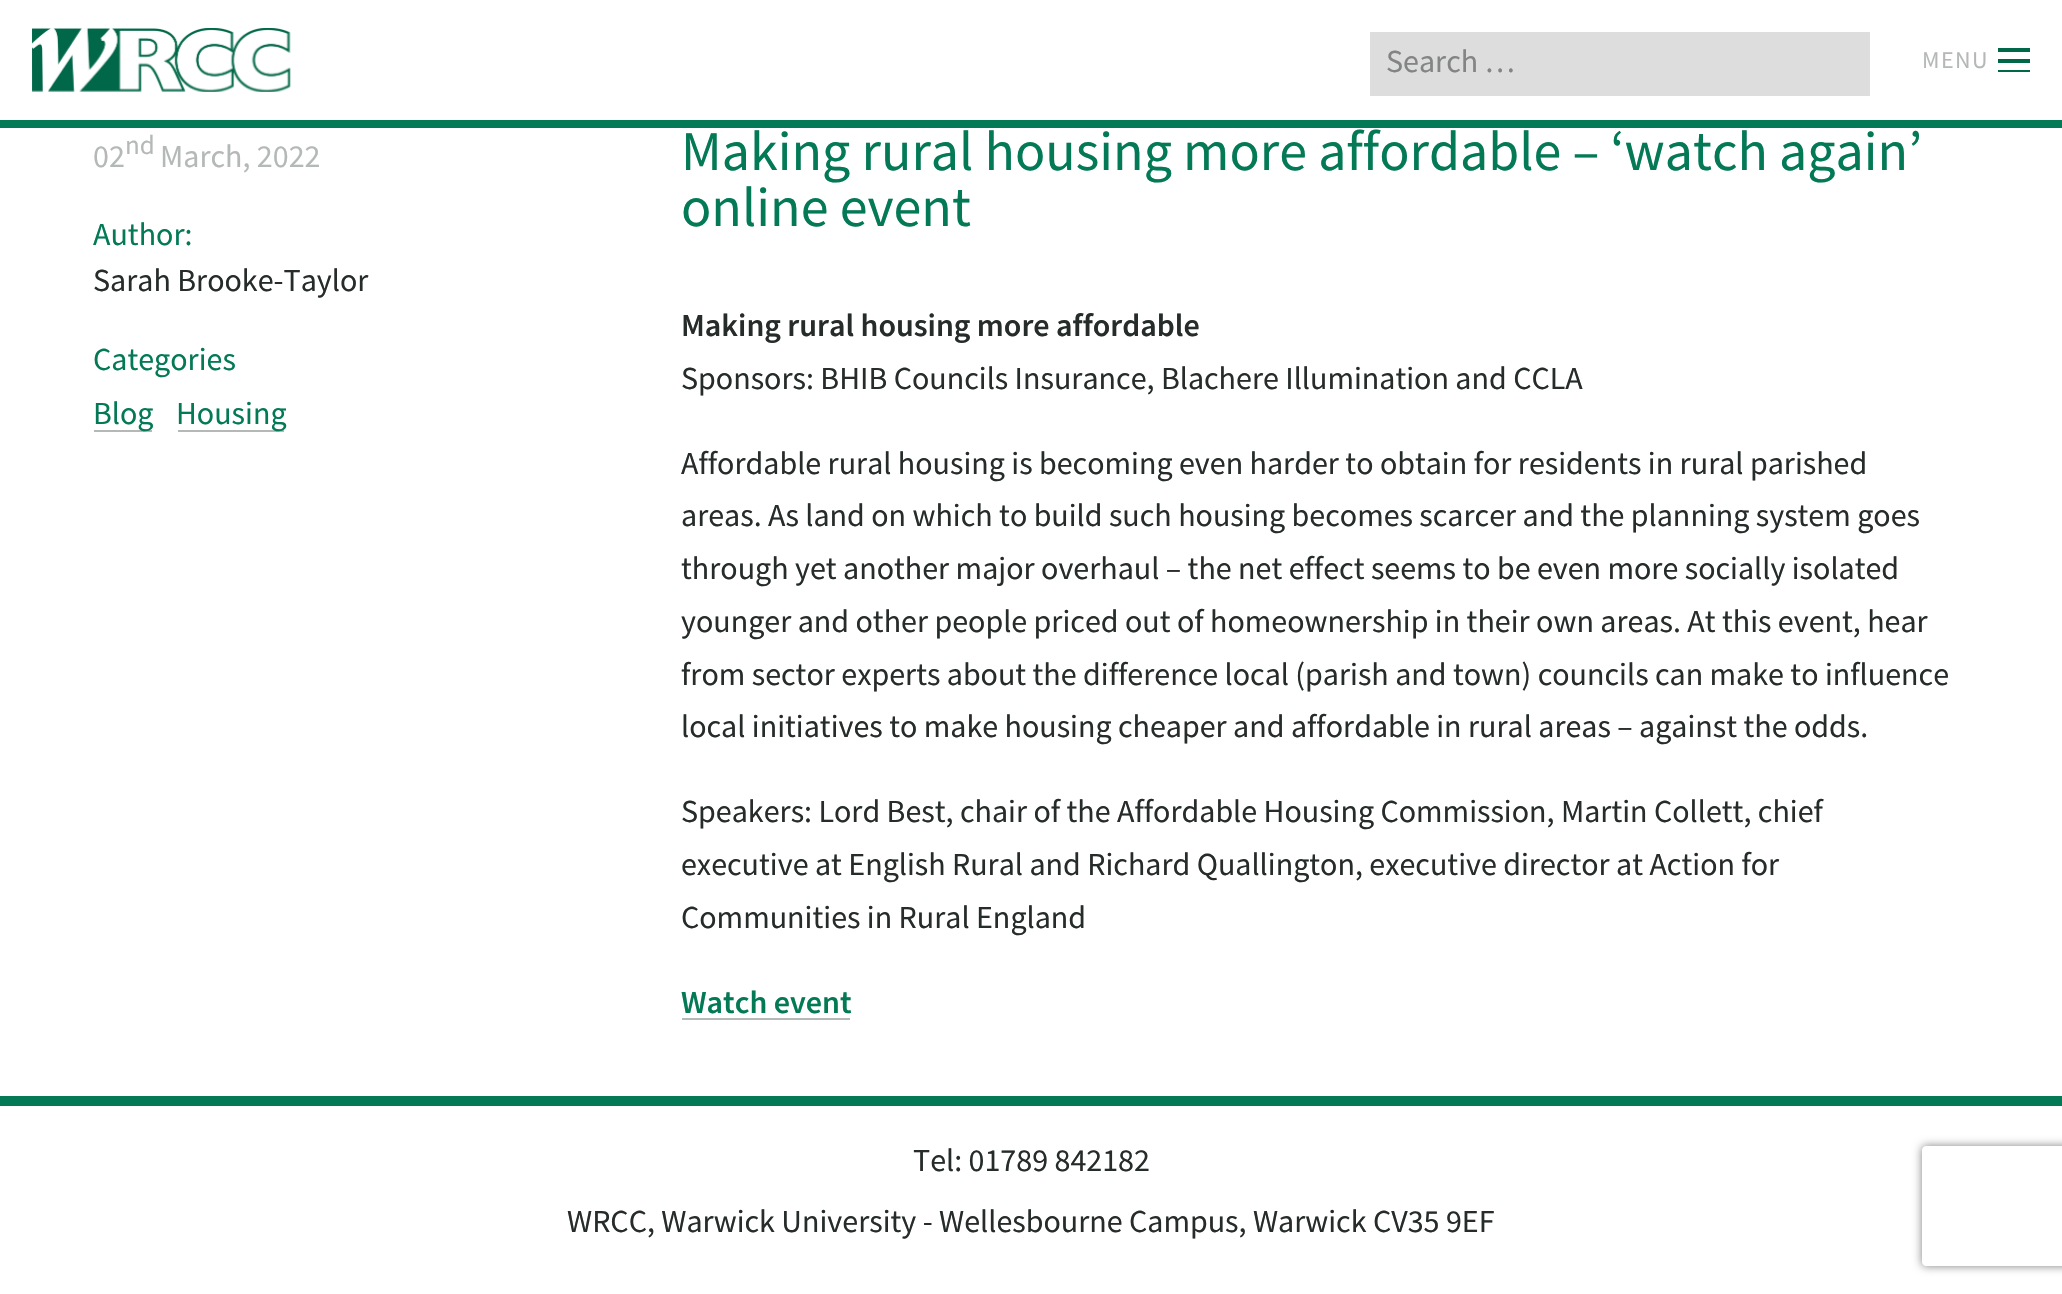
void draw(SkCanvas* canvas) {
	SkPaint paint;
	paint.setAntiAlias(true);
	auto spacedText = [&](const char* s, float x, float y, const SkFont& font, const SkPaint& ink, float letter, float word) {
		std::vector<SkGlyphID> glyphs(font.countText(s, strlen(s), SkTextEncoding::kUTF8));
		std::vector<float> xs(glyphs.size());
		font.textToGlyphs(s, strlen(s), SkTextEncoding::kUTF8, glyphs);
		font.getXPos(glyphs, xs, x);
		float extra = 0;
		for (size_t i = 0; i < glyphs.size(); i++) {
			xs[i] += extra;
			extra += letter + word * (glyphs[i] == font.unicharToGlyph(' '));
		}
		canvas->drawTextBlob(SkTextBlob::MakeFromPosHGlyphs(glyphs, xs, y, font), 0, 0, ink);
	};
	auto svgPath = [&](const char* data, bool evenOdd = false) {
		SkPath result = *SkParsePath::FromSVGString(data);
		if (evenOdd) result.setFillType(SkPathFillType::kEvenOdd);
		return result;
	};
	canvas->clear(0xffffffff);
	paint.setColor(0xff037955);
	canvas->drawRect(SkRect::MakeXYWH(0, 120, 2062, 8), paint);
	canvas->drawImageRect(SkImages::DeferredFromEncodedData(SkData::MakeFromFileName("img1.png")), SkRect::MakeXYWH(32, 28, 259, 64), SkSamplingOptions());
	paint.setColor(0xffdddddd);
	canvas->drawRect(SkRect::MakeXYWH(1370, 32, 500, 64), paint);
	SkFont f1(fontMgr->matchFamilyStyle("Mada", SkFontStyle::Normal()), 32);
	f1.setSubpixel(true);
	paint.setColor(0xff828584);
	canvas->drawString("Search …", 1386, 72, f1, paint);
	paint.setColor(0xff006748);
	canvas->drawRect(SkRect::MakeXYWH(1998, 48, 32, 4), paint);
	canvas->drawRect(SkRect::MakeXYWH(1998, 70, 32, 2), paint);
	canvas->drawRect(SkRect::MakeXYWH(1998, 59, 32, 4), paint);
	SkFont f2(fontMgr->matchFamilyStyle("Mada", SkFontStyle::Normal()), 24);
	f2.setSubpixel(true);
	paint.setColor(0xffb4b9b7);
	spacedText("MENU", 1922, 68, f2, paint, 1.5, 0);
	canvas->drawString("02", 93, 167, f1, paint);
	SkFont f3(fontMgr->matchFamilyStyle("Mada", SkFontStyle::Normal()), 27);
	f3.setSubpixel(true);
	canvas->drawString("nd", 125, 154, f3, paint);
	canvas->drawString("March, 2022", 160, 167, f1, paint);
	paint.setColor(0xff037955);
	canvas->drawString("Author:", 93, 245, f1, paint);
	paint.setColor(0xff262c2a);
	canvas->drawString("Sarah Brooke-Taylor", 93, 291, f1, paint);
	paint.setColor(0xff037955);
	canvas->drawString("Categories", 93, 370, f1, paint);
	paint.setColor(0xffb4b9b7);
	canvas->drawRect(SkRect::MakeXYWH(92, 430, 62, 2), paint);
	paint.setColor(0xffffffff);
	canvas->drawRect(SkRect::MakeXYWH(152, 430, 2, 2), paint);
	paint.setColor(0xff037955);
	canvas->drawString("Blog", 93, 424, f1, paint);
	paint.setColor(0xffffffff);
	canvas->drawRect(SkRect::MakeXYWH(92, 430, 2, 2), paint);
	paint.setColor(0xffb4b9b7);
	canvas->drawRect(SkRect::MakeXYWH(176, 430, 110, 2), paint);
	paint.setColor(0xffffffff);
	canvas->drawRect(SkRect::MakeXYWH(284, 430, 2, 2), paint);
	paint.setColor(0xff037955);
	canvas->drawString("Housing", 176, 424, f1, paint);
	paint.setColor(0xffffffff);
	canvas->drawRect(SkRect::MakeXYWH(176, 430, 2, 2), paint);
	SkFont f4(fontMgr->matchFamilyStyle("Mada", SkFontStyle::Normal()), 56);
	f4.setSubpixel(true);
	paint.setColor(0xff037955);
	canvas->drawString("Making rural housing more affordable – ‘watch again’", 681, 170, f4, paint);
	canvas->drawString("online event", 681, 226, f4, paint);
	SkFont f5(fontMgr->matchFamilyStyle("Mada", SkFontStyle(600, SkFontStyle::kNormal_Width, SkFontStyle::kUpright_Slant)), 32);
	f5.setSubpixel(true);
	paint.setColor(0xff262c2a);
	canvas->drawString("Making rural housing more affordable", 681, 336, f5, paint);
	canvas->drawString("Sponsors: BHIB Councils Insurance, Blachere Illumination and CCLA", 681, 389, f1, paint);
	canvas->drawString("Affordable rural housing is becoming even harder to obtain for residents in rural parished", 681, 474, f1, paint);
	canvas->drawString("areas. As land on which to build such housing becomes scarcer and the planning system goes", 681, 526, f1, paint);
	canvas->drawString("through yet another major overhaul – the net effect seems to be even more socially isolated", 681, 579, f1, paint);
	canvas->drawString("younger and other people priced out of homeownership in their own areas. At this event, hear", 681, 632, f1, paint);
	canvas->drawString("from sector experts about the difference local (parish and town) councils can make to influence", 681, 685, f1, paint);
	canvas->drawString("local initiatives to make housing cheaper and affordable in rural areas – against the odds.", 681, 737, f1, paint);
	canvas->drawString("Speakers: Lord Best, chair of the Affordable Housing Commission, Martin Collett, chief", 681, 822, f1, paint);
	canvas->drawString("executive at English Rural and Richard Quallington, executive director at Action for", 681, 875, f1, paint);
	canvas->drawString("Communities in Rural England", 681, 928, f1, paint);
	paint.setColor(0xff037955);
	canvas->drawString("Watch event", 681, 1013, f5, paint);
	paint.setColor(0xffb4b9b7);
	canvas->drawRect(SkRect::MakeXYWH(680, 1018, 172, 2), paint);
	paint.setColor(0xffffffff);
	canvas->drawRect(SkRect::MakeXYWH(850, 1018, 2, 2), paint);
	canvas->drawRect(SkRect::MakeXYWH(680, 1018, 2, 2), paint);
	paint.setColor(0xff037955);
	canvas->drawRect(SkRect::MakeXYWH(0, 1096, 2062, 10), paint);
	paint.setColor(0xff262c2a);
	canvas->drawString("Tel: 01789 842182", 913, 1171, f1, paint);
	canvas->drawString("WRCC, Warwick University - Wellesbourne Campus, Warwick CV35 9EF", 567, 1232, f1, paint);
	canvas->save();
	canvas->clipPath(svgPath("M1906 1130H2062V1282H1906ZM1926 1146H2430C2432 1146 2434 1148 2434 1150V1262C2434 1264 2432 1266 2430 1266H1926C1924 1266 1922 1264 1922 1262V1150C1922 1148 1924 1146 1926 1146Z", true), true);
	paint.setColor(0xff808080);
	paint.setMaskFilter(SkMaskFilter::MakeBlur(kNormal_SkBlurStyle, 5));
	canvas->drawRoundRect(SkRect::MakeXYWH(1922, 1146, 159, 120), 4, 4, paint);
	paint.setMaskFilter(nullptr);
	canvas->restore();
}
